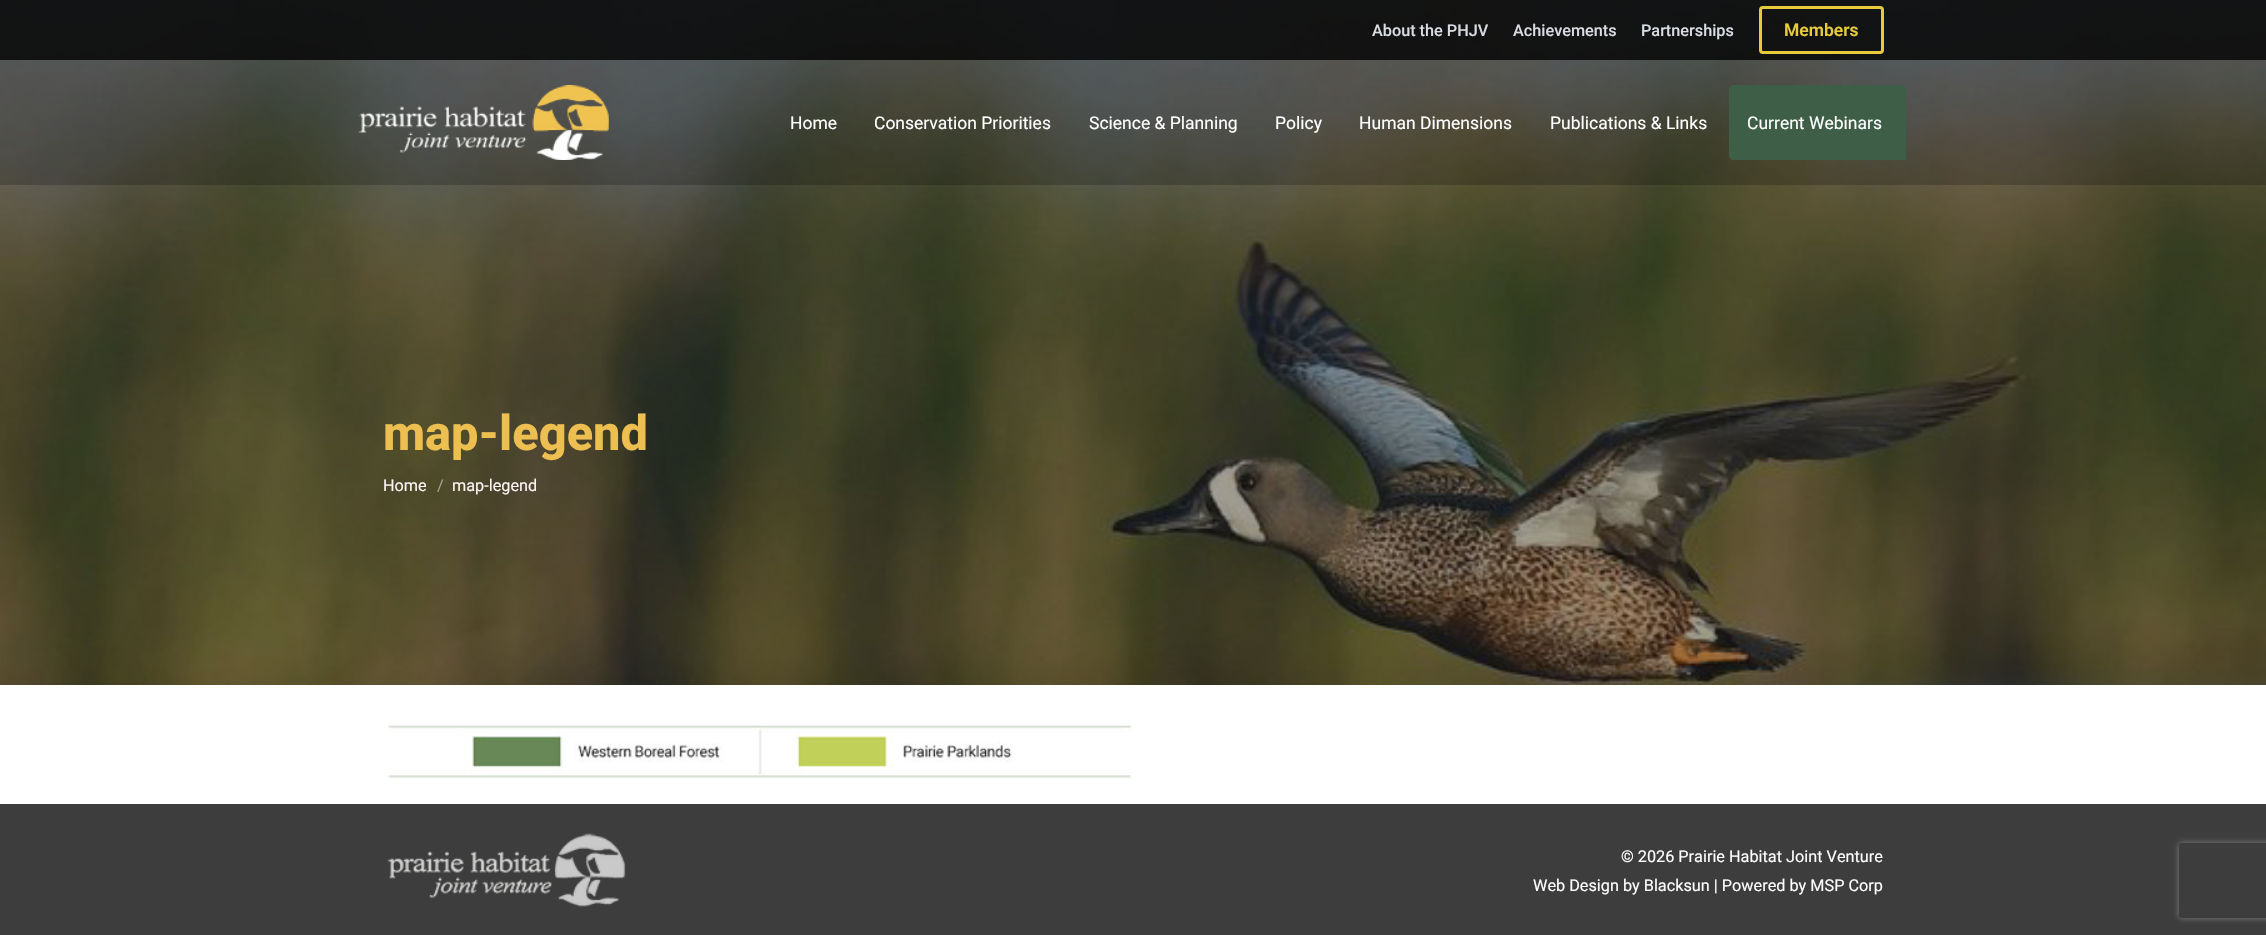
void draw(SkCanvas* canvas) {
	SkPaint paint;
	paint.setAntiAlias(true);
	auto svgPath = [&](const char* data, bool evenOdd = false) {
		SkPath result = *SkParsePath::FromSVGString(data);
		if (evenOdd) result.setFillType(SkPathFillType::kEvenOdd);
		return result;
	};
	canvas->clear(0xffffffff);
	canvas->drawImageRect(SkImages::DeferredFromEncodedData(SkData::MakeFromFileName("img2.png")), SkRect::MakeXYWH(0, 0, 2266, 685), SkSamplingOptions());
	paint.setColor(0x36000000);
	canvas->drawRect(SkRect::MakeXYWH(0, 0, 2266, 185), paint);
	paint.setColor(0xc9000000);
	canvas->drawRect(SkRect::MakeXYWH(0, 0, 2266, 60), paint);
	SkFont f1(fontMgr->matchFamilyStyle("Roboto", SkFontStyle(500, SkFontStyle::kNormal_Width, SkFontStyle::kUpright_Slant)), 16.25);
	f1.setSubpixel(true);
	paint.setColor(0xffd9dce2);
	canvas->drawString("About the PHJV", 1372, 36, f1, paint);
	canvas->drawString("Achievements", 1513, 36, f1, paint);
	canvas->drawString("Partnerships", 1641, 36, f1, paint);
	paint.setStroke(true);
	paint.setStrokeWidth(3);
	paint.setColor(0xffe8cb3a);
	canvas->drawRoundRect(SkRect::MakeXYWH(1760.5, 7.5, 122, 45), 2.5, 2.5, paint);
	SkFont f2(fontMgr->matchFamilyStyle("Roboto", SkFontStyle(600, SkFontStyle::kNormal_Width, SkFontStyle::kUpright_Slant)), 17.5);
	f2.setSubpixel(true);
	paint.setStroke(false);
	canvas->drawString("Members", 1784, 36, f2, paint);
	canvas->drawImageRect(SkImages::DeferredFromEncodedData(SkData::MakeFromFileName("img1.png")), SkRect::MakeXYWH(358, 85, 251, 75), SkSamplingOptions());
	SkFont f3(fontMgr->matchFamilyStyle("Roboto", SkFontStyle::Normal()), 17.5);
	f3.setSubpixel(true);
	paint.setColor(0xffffffff);
	canvas->drawString("Home", 790, 129, f3, paint);
	canvas->drawString("Conservation Priorities", 874, 129, f3, paint);
	canvas->drawString("Science & Planning", 1089, 129, f3, paint);
	canvas->drawString("Policy", 1275, 129, f3, paint);
	canvas->drawString("Human Dimensions", 1359, 129, f3, paint);
	canvas->drawString("Publications & Links", 1550, 129, f3, paint);
	paint.setColor(0xff3e5e47);
	canvas->drawPath(svgPath("M1734 85H1901C1904 85 1906 87 1906 90V160H1734C1731 160 1729 158 1729 155V90C1729 87 1731 85 1734 85Z"), paint);
	paint.setColor(0xffffffff);
	canvas->drawString("Current Webinars", 1747, 129, f3, paint);
	SkFont f4(fontMgr->matchFamilyStyle("Roboto", SkFontStyle(800, SkFontStyle::kNormal_Width, SkFontStyle::kUpright_Slant)), 48.75);
	f4.setSubpixel(true);
	paint.setColor(0xffedbe50);
	canvas->drawString("map-legend", 383, 450, f4, paint);
	SkFont f5(fontMgr->matchFamilyStyle("Roboto", SkFontStyle::Normal()), 16.25);
	f5.setSubpixel(true);
	paint.setColor(0xfffff4f4);
	canvas->drawString("Home", 383, 491, f5, paint);
	paint.setColor(0xffa69f8f);
	canvas->drawString("/", 437, 491, f5, paint);
	paint.setColor(0xfffff4f4);
	canvas->drawString("map-legend", 452, 491, f5, paint);
	canvas->drawImageRect(SkImages::DeferredFromEncodedData(SkData::MakeFromFileName("img3.png")), SkRect::MakeXYWH(387, 723, 747, 56), SkSamplingOptions());
	paint.setColor(0xff3d3d3d);
	canvas->drawRect(SkRect::MakeXYWH(0, 804, 2266, 131), paint);
	canvas->drawImageRect(SkImages::DeferredFromEncodedData(SkData::MakeFromFileName("img4.png")), SkRect::MakeXYWH(387, 833, 239, 74), SkSamplingOptions());
	paint.setColor(0xffffffff);
	canvas->drawString("© 2026 Prairie Habitat Joint Venture", 1621, 862, f5, paint);
	canvas->drawString("Web Design by Blacksun | Powered by MSP Corp", 1533, 891, f5, paint);
	canvas->save();
	canvas->clipPath(svgPath("M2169 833H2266V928H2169ZM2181.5 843H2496.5C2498 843 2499 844 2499 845.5V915.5C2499 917 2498 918 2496.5 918H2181.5C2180 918 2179 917 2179 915.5V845.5C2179 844 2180 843 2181.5 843Z", true), true);
	paint.setColor(0xff808080);
	paint.setMaskFilter(SkMaskFilter::MakeBlur(kNormal_SkBlurStyle, 3));
	canvas->drawRoundRect(SkRect::MakeXYWH(2179, 843, 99, 75), 2.5, 2.5, paint);
	paint.setMaskFilter(nullptr);
	canvas->restore();
}
